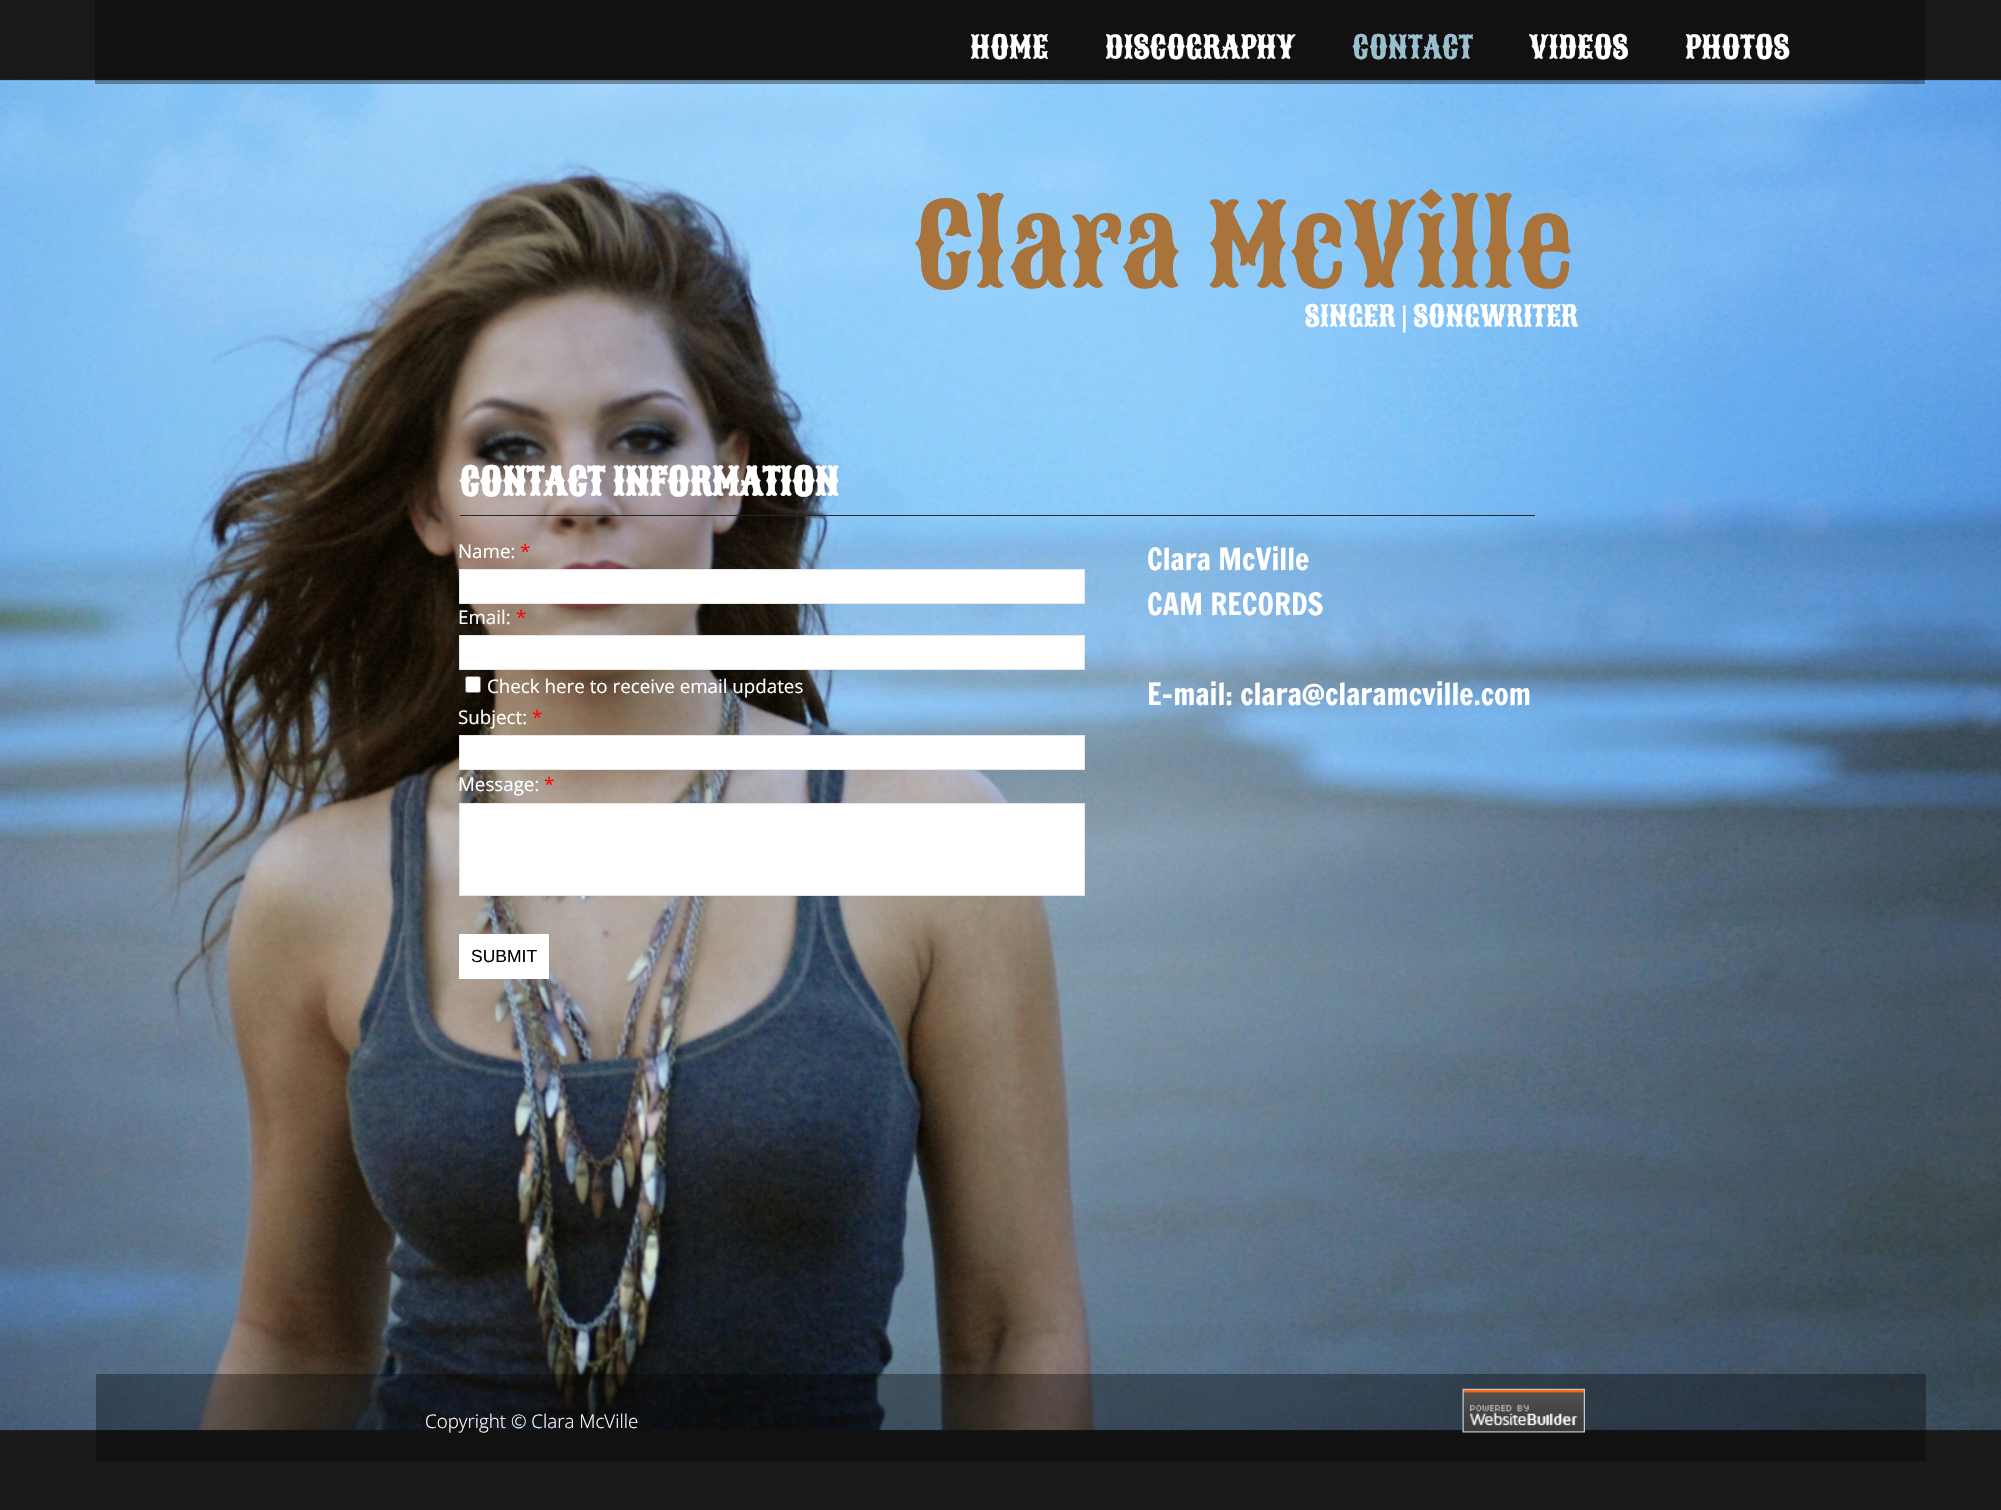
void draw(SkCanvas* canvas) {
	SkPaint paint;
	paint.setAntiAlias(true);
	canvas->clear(0xff191919);
	canvas->drawImageRect(SkImages::DeferredFromEncodedData(SkData::MakeFromFileName("img1.png")), SkRect::MakeXYWH(0, 79, 2001, 1352), SkSamplingOptions());
	paint.setColor(0x59000000);
	canvas->drawRect(SkRect::MakeXYWH(95, 0, 1830, 84), paint);
	SkFont f1(fontMgr->matchFamilyStyle("Sancreek", SkFontStyle::Normal()), 31.25);
	f1.setSubpixel(true);
	paint.setColor(0xffffffff);
	canvas->drawString("HOME", 970, 58, f1, paint);
	canvas->drawString("DISCOGRAPHY", 1105, 58, f1, paint);
	paint.setColor(0xff9ac0cf);
	canvas->drawString("CONTACT", 1352, 58, f1, paint);
	paint.setColor(0xffffffff);
	canvas->drawString("VIDEOS", 1529, 58, f1, paint);
	canvas->drawString("PHOTOS", 1685, 58, f1, paint);
	SkFont f2(fontMgr->matchFamilyStyle("Sancreek", SkFontStyle::Normal()), 112.5);
	f2.setSubpixel(true);
	paint.setColor(0xffa9733c);
	canvas->drawString("Clara McVille", 913, 285, f2, paint);
	SkFont f3(fontMgr->matchFamilyStyle("Sancreek", SkFontStyle::Normal()), 28.75);
	f3.setSubpixel(true);
	paint.setColor(0xffffffff);
	canvas->drawString("SINGER | SONGWRITER", 1305, 326, f3, paint);
	SkFont f4(fontMgr->matchFamilyStyle("Sancreek", SkFontStyle::Bold()), 37.5);
	f4.setSubpixel(true);
	canvas->drawString("CONTACT INFORMATION", 459, 495, f4, paint);
	paint.setColor(0xff262626);
	canvas->drawRect(SkRect::MakeXYWH(460, 515, 1075, 1), paint);
	SkFont f5(fontMgr->matchFamilyStyle("Open Sans", SkFontStyle::Normal()), 18.75);
	f5.setSubpixel(true);
	paint.setColor(0xffffffff);
	canvas->drawString("Name:", 458, 558, f5, paint);
	paint.setColor(0xffff0000);
	canvas->drawString("*", 520, 558, f5, paint);
	paint.setColor(0xffffffff);
	canvas->drawRect(SkRect::MakeXYWH(459.5, 569.5, 625, 34), paint);
	paint.setStroke(true);
	paint.setStrokeWidth(1);
	paint.setColor(0xffe7e7e7);
	canvas->drawRect(SkRect::MakeXYWH(459.5, 569.5, 625, 34), paint);
	paint.setStroke(false);
	paint.setColor(0xffffffff);
	canvas->drawString("Email:", 458, 624, f5, paint);
	paint.setColor(0xffff0000);
	canvas->drawString("*", 516, 624, f5, paint);
	paint.setColor(0xffffffff);
	canvas->drawRect(SkRect::MakeXYWH(459.5, 635.5, 625, 34), paint);
	paint.setStroke(true);
	paint.setColor(0xffe7e7e7);
	canvas->drawRect(SkRect::MakeXYWH(459.5, 635.5, 625, 34), paint);
	paint.setStroke(false);
	paint.setColor(0xffffffff);
	canvas->drawRoundRect(SkRect::MakeXYWH(465.5, 676.5, 15, 16), 2, 2, paint);
	paint.setStroke(true);
	paint.setColor(0xff767676);
	canvas->drawRoundRect(SkRect::MakeXYWH(465.5, 676.5, 15, 16), 2, 2, paint);
	paint.setStroke(false);
	paint.setColor(0xffffffff);
	canvas->drawString("Check here to receive email updates", 487, 693, f5, paint);
	canvas->drawString("Subject:", 458, 724, f5, paint);
	paint.setColor(0xffff0000);
	canvas->drawString("*", 532, 724, f5, paint);
	paint.setColor(0xffffffff);
	canvas->drawRect(SkRect::MakeXYWH(459.5, 735.5, 625, 34), paint);
	paint.setStroke(true);
	paint.setColor(0xffe7e7e7);
	canvas->drawRect(SkRect::MakeXYWH(459.5, 735.5, 625, 34), paint);
	paint.setStroke(false);
	paint.setColor(0xffffffff);
	canvas->drawString("Message:", 458, 791, f5, paint);
	paint.setColor(0xffff0000);
	canvas->drawString("*", 544, 791, f5, paint);
	paint.setColor(0xffffffff);
	canvas->drawRect(SkRect::MakeXYWH(459.5, 803.5, 625, 92), paint);
	paint.setStroke(true);
	paint.setColor(0xffe7e7e7);
	canvas->drawRect(SkRect::MakeXYWH(459.5, 803.5, 625, 92), paint);
	paint.setStroke(false);
	paint.setColor(0xffffffff);
	canvas->drawRect(SkRect::MakeXYWH(459, 934, 90, 45), paint);
	SkFont f6(fontMgr->matchFamilyStyle("Liberation Sans", SkFontStyle::Normal()), 17.5);
	f6.setSubpixel(true);
	paint.setColor(0xff000000);
	canvas->drawString("SUBMIT", 471, 962, f6, paint);
	SkFont f7(fontMgr->matchFamilyStyle("Francois One", SkFontStyle::Normal()), 30);
	f7.setSubpixel(true);
	paint.setColor(0xffffffff);
	canvas->drawString("Clara McVille", 1147, 570, f7, paint);
	canvas->drawString("CAM RECORDS", 1147, 615, f7, paint);
	canvas->drawString("E-mail: clara@claramcville.com", 1147, 705, f7, paint);
	paint.setColor(0x59000000);
	canvas->drawRect(SkRect::MakeXYWH(96, 1374, 1830, 87), paint);
	SkFont f8(fontMgr->matchFamilyStyle("Open Sans", SkFontStyle(300, SkFontStyle::kNormal_Width, SkFontStyle::kUpright_Slant)), 18.75);
	f8.setSubpixel(true);
	paint.setColor(0xffffffff);
	canvas->drawString("Copyright © Clara McVille", 425, 1428, f8, paint);
	canvas->drawImageRect(SkImages::DeferredFromEncodedData(SkData::MakeFromFileName("img2.png")), SkRect::MakeXYWH(1462, 1388, 123, 45), SkSamplingOptions());
}
